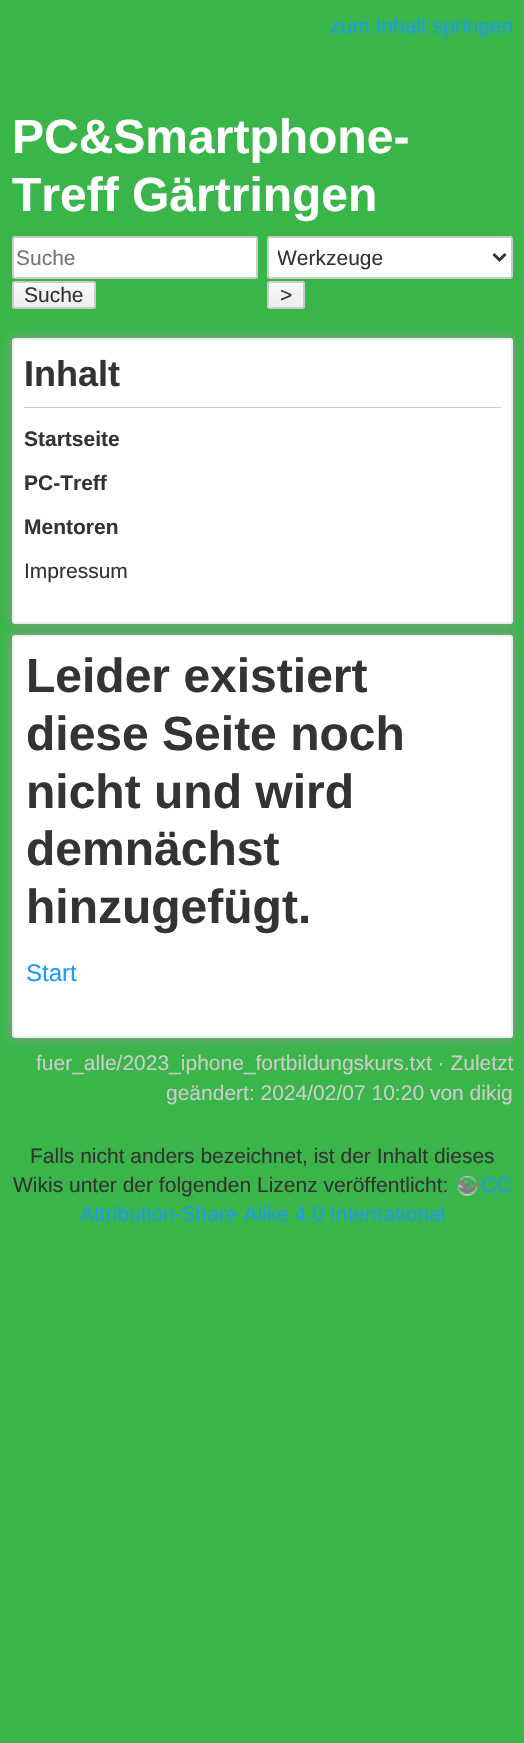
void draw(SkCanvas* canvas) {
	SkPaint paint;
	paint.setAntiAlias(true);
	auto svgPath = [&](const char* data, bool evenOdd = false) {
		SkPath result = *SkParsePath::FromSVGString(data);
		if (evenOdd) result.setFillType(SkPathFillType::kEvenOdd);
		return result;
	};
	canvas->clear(0xff3ab54a);
	SkFont f1(fontMgr->matchFamilyStyle("Liberation Sans", SkFontStyle::Normal()), 21);
	f1.setSubpixel(true);
	paint.setColor(0xff189cf1);
	canvas->drawString("zum Inhalt springen", 330, 33, f1, paint);
	SkFont f2(fontMgr->matchFamilyStyle("Liberation Sans", SkFontStyle::Bold()), 48);
	f2.setSubpixel(true);
	paint.setColor(0xffffffff);
	canvas->drawString("PC&Smartphone-", 12, 153, f2, paint);
	canvas->drawString("Treff Gärtringen", 12, 211, f2, paint);
	canvas->drawRoundRect(SkRect::MakeXYWH(13, 237, 244, 41), 2, 2, paint);
	paint.setStroke(true);
	paint.setStrokeWidth(2);
	paint.setColor(0xffcccccc);
	canvas->drawRoundRect(SkRect::MakeXYWH(13, 237, 244, 41), 2, 2, paint);
	paint.setStroke(false);
	paint.setColor(0xff757575);
	canvas->drawString("Suche", 16, 265, f1, paint);
	canvas->save();
	canvas->clipPath(svgPath("M15 281H93C94.5 281 96 282.5 96 284V306C96 307.5 94.5 309 93 309H15C13.5 309 12 307.5 12 306V284C12 282.5 13.5 281 15 281Z"), true);
	{
		const SkColor colors[] = {0xffffffff, 0xfff4f4f4, 0xffeeeeee, 0xffcccccc};
		const float stops[] = {0, 0.3, 0.99, 0.99};
		const SkPoint ends[] = {{54, 282}, {54, 308}};
		paint.setShader(SkGradientShader::MakeLinear(ends, colors, stops, 4, SkTileMode::kClamp));
		paint.setAlpha(255);
	}
	canvas->drawRect(SkRect::MakeXYWH(12, 282, 84, 26), paint);
	canvas->restore();
	paint.setStroke(true);
	paint.setShader(nullptr);
	paint.setColor(0xffcccccc);
	canvas->drawRoundRect(SkRect::MakeXYWH(13, 282, 82, 26), 2, 2, paint);
	paint.setStroke(false);
	paint.setColor(0xff333333);
	canvas->drawString("Suche", 24, 302, f1, paint);
	paint.setColor(0xffffffff);
	canvas->drawRoundRect(SkRect::MakeXYWH(268, 237, 244, 41), 2, 2, paint);
	paint.setStroke(true);
	paint.setColor(0xffcccccc);
	canvas->drawRoundRect(SkRect::MakeXYWH(268, 237, 244, 41), 2, 2, paint);
	paint.setStrokeWidth(3);
	paint.setColor(0xff333333);
	canvas->drawPath(svgPath("M493.5 254L499.5 260L505.5 254"), paint);
	canvas->save();
	canvas->clipRect(SkRect::MakeXYWH(278, 243, 208, 27));
	paint.setStroke(false);
	canvas->drawString("Werkzeuge", 277, 265, f1, paint);
	canvas->restore();
	canvas->save();
	canvas->clipPath(svgPath("M270 281H302C303.5 281 305 282.5 305 284V306C305 307.5 303.5 309 302 309H270C268.5 309 267 307.5 267 306V284C267 282.5 268.5 281 270 281Z"), true);
	{
		const SkColor colors[] = {0xffffffff, 0xfff4f4f4, 0xffeeeeee, 0xffcccccc};
		const float stops[] = {0, 0.3, 0.99, 0.99};
		const SkPoint ends[] = {{286, 282}, {286, 308}};
		paint.setShader(SkGradientShader::MakeLinear(ends, colors, stops, 4, SkTileMode::kClamp));
		paint.setAlpha(255);
	}
	canvas->drawRect(SkRect::MakeXYWH(267, 282, 38, 26), paint);
	canvas->restore();
	paint.setStroke(true);
	paint.setStrokeWidth(2);
	paint.setShader(nullptr);
	paint.setColor(0xffcccccc);
	canvas->drawRoundRect(SkRect::MakeXYWH(268, 282, 36, 26), 2, 2, paint);
	paint.setStroke(false);
	paint.setColor(0xff333333);
	canvas->drawString(">", 280, 302, f1, paint);
	paint.setColor(0xff999999);
	paint.setMaskFilter(SkMaskFilter::MakeBlur(kNormal_SkBlurStyle, 6));
	canvas->drawRoundRect(SkRect::MakeXYWH(12, 635, 501, 403), 3, 3, paint);
	paint.setMaskFilter(nullptr);
	paint.setColor(0xffffffff);
	canvas->drawRoundRect(SkRect::MakeXYWH(13, 636, 499, 401), 2, 2, paint);
	paint.setStroke(true);
	paint.setColor(0xffeeeeee);
	canvas->drawRoundRect(SkRect::MakeXYWH(13, 636, 499, 401), 2, 2, paint);
	paint.setStroke(false);
	paint.setColor(0xff999999);
	paint.setMaskFilter(SkMaskFilter::MakeBlur(kNormal_SkBlurStyle, 5));
	canvas->drawRoundRect(SkRect::MakeXYWH(12, 338, 501, 286), 3, 3, paint);
	paint.setMaskFilter(nullptr);
	paint.setColor(0xffffffff);
	canvas->drawRoundRect(SkRect::MakeXYWH(13, 339, 499, 284), 2, 2, paint);
	paint.setStroke(true);
	paint.setColor(0xffeeeeee);
	canvas->drawRoundRect(SkRect::MakeXYWH(13, 339, 499, 284), 2, 2, paint);
	SkFont f3(fontMgr->matchFamilyStyle("Liberation Sans", SkFontStyle::Bold()), 36);
	f3.setSubpixel(true);
	paint.setStroke(false);
	paint.setColor(0xff333333);
	canvas->drawString("Inhalt", 24, 386, f3, paint);
	paint.setColor(0xffcccccc);
	canvas->drawRect(SkRect::MakeXYWH(24, 407, 477, 1), paint);
	SkFont f4(fontMgr->matchFamilyStyle("Liberation Sans", SkFontStyle::Bold()), 21);
	f4.setSubpixel(true);
	paint.setColor(0xff333333);
	canvas->drawString("Startseite", 24, 446, f4, paint);
	canvas->drawString("PC-Treff", 24, 490, f4, paint);
	canvas->drawString("Mentoren", 24, 534, f4, paint);
	canvas->drawString("Impressum", 24, 578, f1, paint);
	canvas->drawString("Leider existiert", 26, 692, f2, paint);
	canvas->drawString("diese Seite noch", 26, 750, f2, paint);
	canvas->drawString("nicht und wird", 26, 808, f2, paint);
	canvas->drawString("demnächst", 26, 865, f2, paint);
	canvas->drawString("hinzugefügt.", 26, 923, f2, paint);
	SkFont f5(fontMgr->matchFamilyStyle("Liberation Sans", SkFontStyle::Normal()), 24);
	f5.setSubpixel(true);
	paint.setColor(0xff189cf1);
	canvas->drawString("Start", 26, 981, f5, paint);
	paint.setColor(0xffcccccc);
	canvas->drawString("fuer_alle/2023_iphone_fortbildungskurs.txt · Zuletzt", 36, 1070, f1, paint);
	canvas->drawString("geändert: 2024/02/07 10:20 von dikig", 166, 1100, f1, paint);
	paint.setColor(0xff333333);
	canvas->drawString("Falls nicht anders bezeichnet, ist der Inhalt dieses", 30, 1163, f1, paint);
	canvas->drawString("Wikis unter der folgenden Lizenz veröffentlicht:", 13, 1192, f1, paint);
	canvas->drawImageRect(SkImages::DeferredFromEncodedData(SkData::MakeFromFileName("img1.png")), SkRect::MakeXYWH(457, 1174, 21, 22), SkSamplingOptions());
	paint.setColor(0xff189cf1);
	canvas->drawString("CC", 481, 1192, f1, paint);
	canvas->drawString("Attribution-Share Alike 4.0 International", 80, 1221, f1, paint);
}
